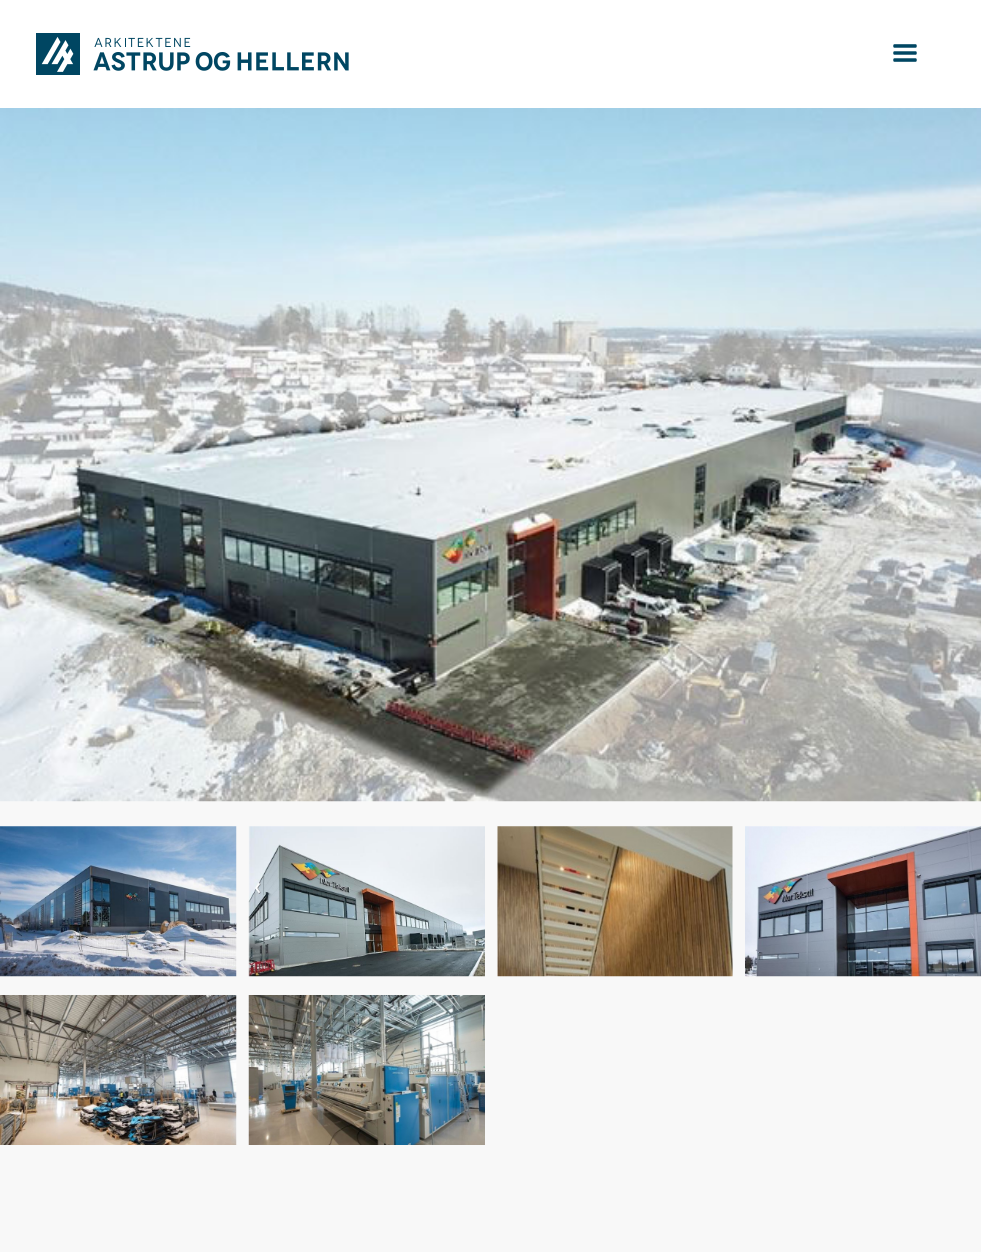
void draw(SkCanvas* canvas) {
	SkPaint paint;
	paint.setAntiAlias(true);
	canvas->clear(0xfff8f8f8);
	paint.setColor(0xffffffff);
	canvas->drawRect(SkRect::MakeXYWH(0, 0, 981, 108), paint);
	canvas->drawImageRect(SkImages::DeferredFromEncodedData(SkData::MakeFromFileName("img1.png")), SkRect::MakeXYWH(36, 33, 313, 42), SkSamplingOptions());
	canvas->drawImageRect(SkImages::DeferredFromEncodedData(SkData::MakeFromFileName("img2.png")), SkRect::MakeXYWH(893, 44, 24, 18), SkSamplingOptions());
	canvas->drawImageRect(SkImages::DeferredFromEncodedData(SkData::MakeFromFileName("img3.png")), SkRect::MakeXYWH(0, 108, 981, 694), SkSamplingOptions());
	canvas->drawImageRect(SkImages::DeferredFromEncodedData(SkData::MakeFromFileName("img4.png")), SkRect::MakeXYWH(0, 826, 237, 151), SkSamplingOptions());
	canvas->drawImageRect(SkImages::DeferredFromEncodedData(SkData::MakeFromFileName("img5.png")), SkRect::MakeXYWH(248, 826, 237, 151), SkSamplingOptions());
	canvas->drawImageRect(SkImages::DeferredFromEncodedData(SkData::MakeFromFileName("img6.png")), SkRect::MakeXYWH(497, 826, 236, 151), SkSamplingOptions());
	canvas->drawImageRect(SkImages::DeferredFromEncodedData(SkData::MakeFromFileName("img7.png")), SkRect::MakeXYWH(745, 826, 236, 151), SkSamplingOptions());
	canvas->drawImageRect(SkImages::DeferredFromEncodedData(SkData::MakeFromFileName("img8.png")), SkRect::MakeXYWH(0, 995, 237, 150), SkSamplingOptions());
	canvas->drawImageRect(SkImages::DeferredFromEncodedData(SkData::MakeFromFileName("img9.png")), SkRect::MakeXYWH(248, 995, 237, 150), SkSamplingOptions());
}
